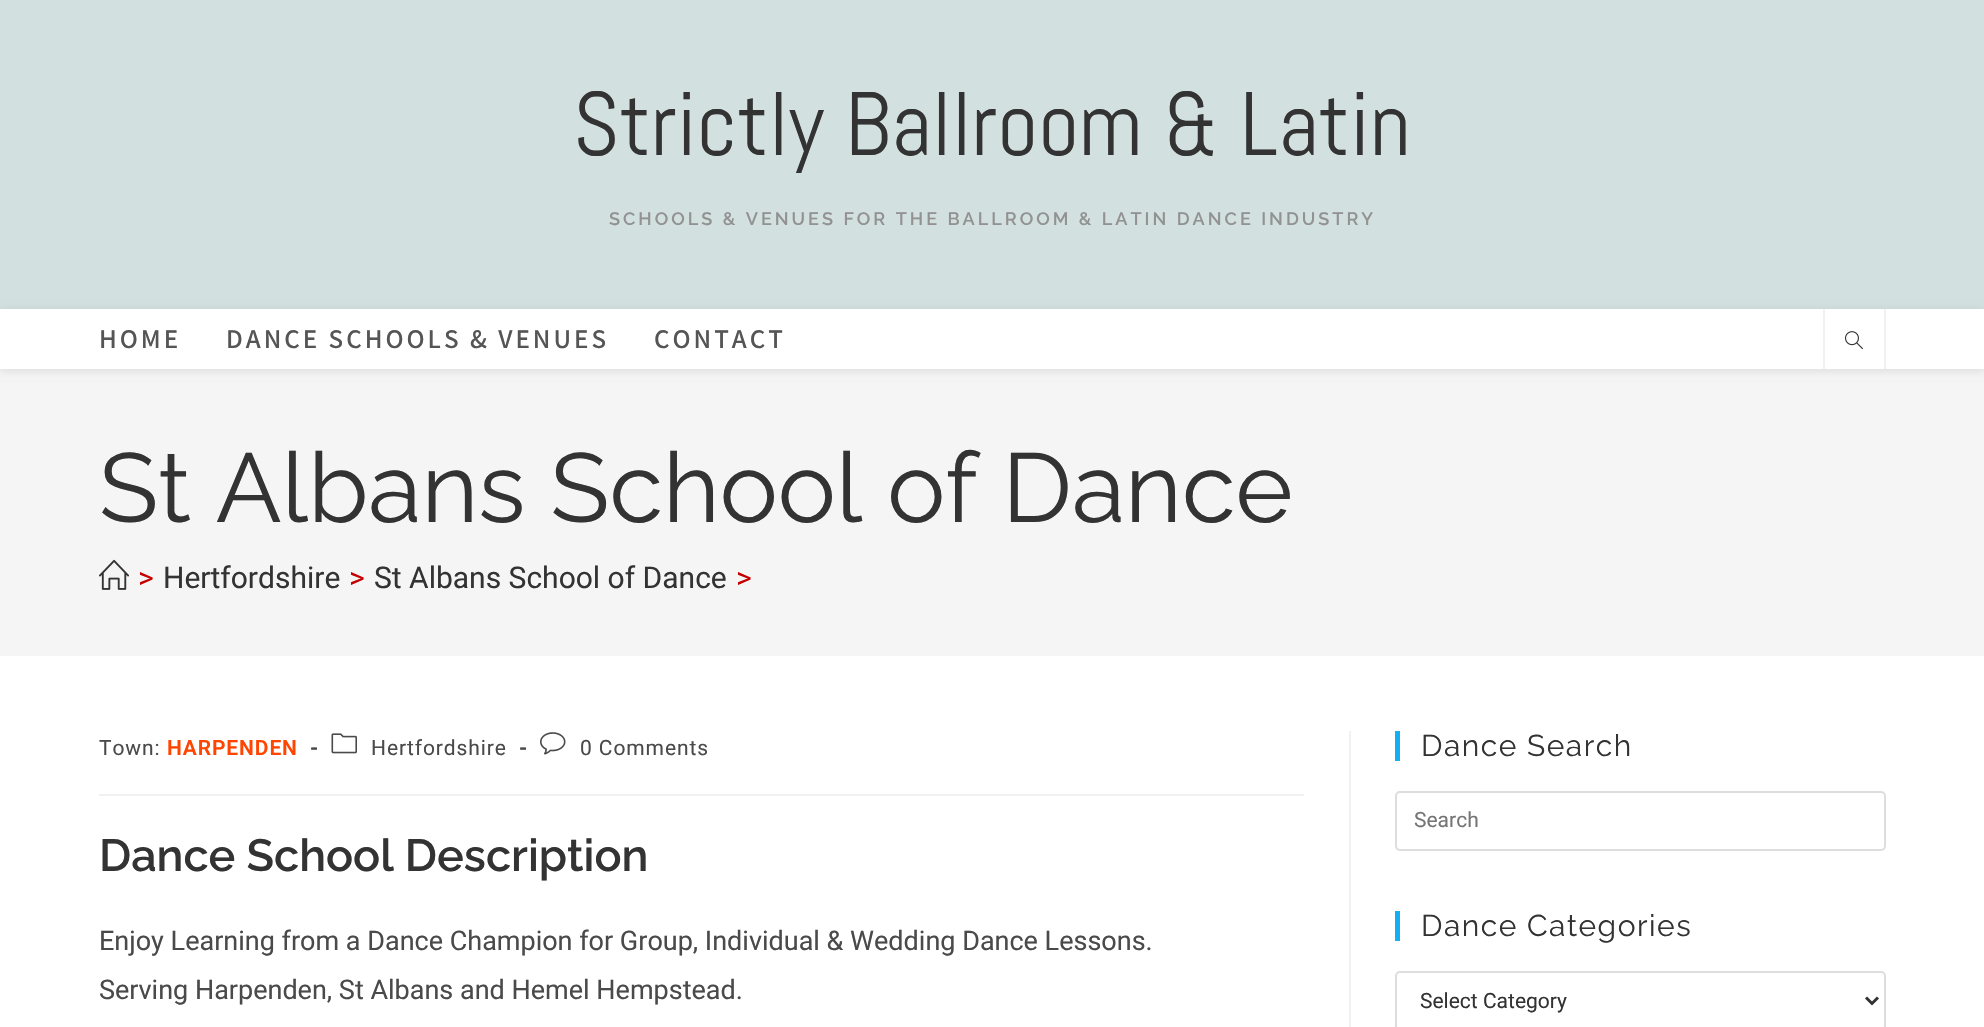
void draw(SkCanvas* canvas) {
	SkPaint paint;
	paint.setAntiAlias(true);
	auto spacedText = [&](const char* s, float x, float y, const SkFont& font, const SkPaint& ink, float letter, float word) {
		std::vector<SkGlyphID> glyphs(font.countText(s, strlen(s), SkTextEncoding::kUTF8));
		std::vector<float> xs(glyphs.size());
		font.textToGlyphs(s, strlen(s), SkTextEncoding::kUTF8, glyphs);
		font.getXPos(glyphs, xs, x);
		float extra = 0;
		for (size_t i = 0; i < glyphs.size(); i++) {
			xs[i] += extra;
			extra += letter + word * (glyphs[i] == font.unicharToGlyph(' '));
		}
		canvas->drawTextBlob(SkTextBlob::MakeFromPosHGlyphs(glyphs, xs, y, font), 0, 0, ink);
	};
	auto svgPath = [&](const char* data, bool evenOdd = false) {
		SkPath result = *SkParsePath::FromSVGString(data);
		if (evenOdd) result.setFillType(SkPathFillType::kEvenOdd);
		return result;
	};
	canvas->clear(0xffffffff);
	paint.setColor(0xffd2e0df);
	canvas->drawRect(SkRect::MakeXYWH(0, 0, 1984, 309), paint);
	SkFont f1(fontMgr->matchFamilyStyle("Abel", SkFontStyle::Normal()), 90);
	f1.setSubpixel(true);
	paint.setColor(0xff333333);
	canvas->drawString("Strictly Ballroom & Latin", 573, 155, f1, paint);
	SkFont f2(fontMgr->matchFamilyStyle("Raleway", SkFontStyle(600, SkFontStyle::kNormal_Width, SkFontStyle::kUpright_Slant)), 18);
	f2.setSubpixel(true);
	paint.setColor(0xff929292);
	spacedText("SCHOOLS & VENUES FOR THE BALLROOM & LATIN DANCE INDUSTRY", 609, 225, f2, paint, 3, 0);
	paint.setColor(0xfff5f5f5);
	canvas->drawRect(SkRect::MakeXYWH(0, 369, 1984, 287), paint);
	paint.setColor(0x1a000000);
	paint.setMaskFilter(SkMaskFilter::MakeBlur(kNormal_SkBlurStyle, 4));
	canvas->drawRect(SkRect::MakeXYWH(0, 311, 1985, 60), paint);
	paint.setMaskFilter(nullptr);
	paint.setColor(0xffffffff);
	canvas->drawRect(SkRect::MakeXYWH(0, 309, 1984, 60), paint);
	SkFont f3(fontMgr->matchFamilyStyle("Assistant", SkFontStyle(600, SkFontStyle::kNormal_Width, SkFontStyle::kUpright_Slant)), 27);
	f3.setSubpixel(true);
	paint.setColor(0xff555555);
	spacedText("HOME", 99, 348, f3, paint, 3, 0);
	spacedText("DANCE SCHOOLS & VENUES", 226, 348, f3, paint, 3, 0);
	spacedText("CONTACT", 654, 348, f3, paint, 3, 0);
	paint.setColor(0xfff1f1f1);
	canvas->drawRect(SkRect::MakeXYWH(1884, 309, 2, 60), paint);
	canvas->drawRect(SkRect::MakeXYWH(1823, 309, 2, 60), paint);
	canvas->drawImageRect(SkImages::DeferredFromEncodedData(SkData::MakeFromFileName("img1.png")), SkRect::MakeXYWH(1845, 331, 18, 19), SkSamplingOptions());
	SkFont f4(fontMgr->matchFamilyStyle("Raleway", SkFontStyle::Normal()), 97.5);
	f4.setSubpixel(true);
	paint.setColor(0xff333333);
	canvas->drawString("St Albans School of Dance", 99, 522, f4, paint);
	canvas->drawImageRect(SkImages::DeferredFromEncodedData(SkData::MakeFromFileName("img2.png")), SkRect::MakeXYWH(99, 559, 30, 31), SkSamplingOptions());
	SkFont f5(fontMgr->matchFamilyStyle("Roboto", SkFontStyle::Normal()), 30);
	f5.setSubpixel(true);
	paint.setColor(0xffc60000);
	canvas->drawString(">", 138, 588, f5, paint);
	paint.setColor(0xff333333);
	canvas->drawString("Hertfordshire", 163, 588, f5, paint);
	paint.setColor(0xffc60000);
	canvas->drawString(">", 349, 588, f5, paint);
	paint.setColor(0xff333333);
	canvas->drawString("St Albans School of Dance", 374, 588, f5, paint);
	paint.setColor(0xffc60000);
	canvas->drawString(">", 736, 588, f5, paint);
	paint.setColor(0xfff1f1f1);
	canvas->drawRect(SkRect::MakeXYWH(1349, 731, 2, 296), paint);
	canvas->drawRect(SkRect::MakeXYWH(99, 794, 1205, 2), paint);
	SkFont f6(fontMgr->matchFamilyStyle("Roboto", SkFontStyle::Normal()), 21);
	f6.setSubpixel(true);
	paint.setColor(0xff4a4a4a);
	spacedText("Town:", 99, 755, f6, paint, 0.9, 0);
	SkFont f7(fontMgr->matchFamilyStyle("Roboto", SkFontStyle(600, SkFontStyle::kNormal_Width, SkFontStyle::kUpright_Slant)), 21);
	f7.setSubpixel(true);
	paint.setColor(0xffff4500);
	spacedText("HARPENDEN", 167, 755, f7, paint, 0.9, 0);
	SkFont f8(fontMgr->matchFamilyStyle("Roboto", SkFontStyle::Bold()), 21);
	f8.setSubpixel(true);
	paint.setColor(0xff4a4a4a);
	spacedText("-", 310, 755, f8, paint, 0.9, 0);
	canvas->drawImageRect(SkImages::DeferredFromEncodedData(SkData::MakeFromFileName("img3.png")), SkRect::MakeXYWH(331, 733, 26, 21), SkSamplingOptions());
	spacedText("Hertfordshire", 371, 755, f6, paint, 0.9, 0);
	spacedText("-", 519, 755, f8, paint, 0.9, 0);
	canvas->drawImageRect(SkImages::DeferredFromEncodedData(SkData::MakeFromFileName("img4.png")), SkRect::MakeXYWH(540, 732, 26, 23), SkSamplingOptions());
	spacedText("0 Comments", 580, 755, f6, paint, 0.9, 0);
	SkFont f9(fontMgr->matchFamilyStyle("Raleway", SkFontStyle(600, SkFontStyle::kNormal_Width, SkFontStyle::kUpright_Slant)), 45);
	f9.setSubpixel(true);
	paint.setColor(0xff333333);
	canvas->drawString("Dance School Description", 99, 871, f9, paint);
	SkFont f10(fontMgr->matchFamilyStyle("Roboto", SkFontStyle::Normal()), 27);
	f10.setSubpixel(true);
	paint.setColor(0xff4a4a4a);
	canvas->drawString("Enjoy Learning from a Dance Champion for Group, Individual & Wedding Dance Lessons.", 99, 950, f10, paint);
	canvas->drawString("Serving Harpenden, St Albans and Hemel Hempstead.", 99, 999, f10, paint);
	paint.setColor(0xff13aff0);
	canvas->drawRect(SkRect::MakeXYWH(1395, 731, 5, 30), paint);
	SkFont f11(fontMgr->matchFamilyStyle("Raleway", SkFontStyle::Normal()), 30);
	f11.setSubpixel(true);
	paint.setColor(0xff333333);
	spacedText("Dance Search", 1421, 756, f11, paint, 1.5, 0);
	paint.setStroke(true);
	paint.setStrokeWidth(2);
	paint.setColor(0xffdddddd);
	canvas->drawRoundRect(SkRect::MakeXYWH(1396, 792, 489, 58), 4, 4, paint);
	paint.setStroke(false);
	paint.setColor(0xff757575);
	canvas->drawString("Search", 1414, 827, f6, paint);
	paint.setColor(0xff13aff0);
	canvas->drawRect(SkRect::MakeXYWH(1395, 911, 5, 30), paint);
	paint.setColor(0xff333333);
	spacedText("Dance Categories", 1421, 936, f11, paint, 1.5, 0);
	paint.setStroke(true);
	paint.setColor(0xffdddddd);
	canvas->drawRoundRect(SkRect::MakeXYWH(1396, 972, 489, 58), 4, 4, paint);
	paint.setStrokeWidth(3);
	paint.setColor(0xff333333);
	canvas->drawPath(svgPath("M1866 997.5L1872 1003.5L1878 997.5"), paint);
	paint.setStroke(false);
	canvas->drawString("Select Category", 1420, 1008, f6, paint);
}
